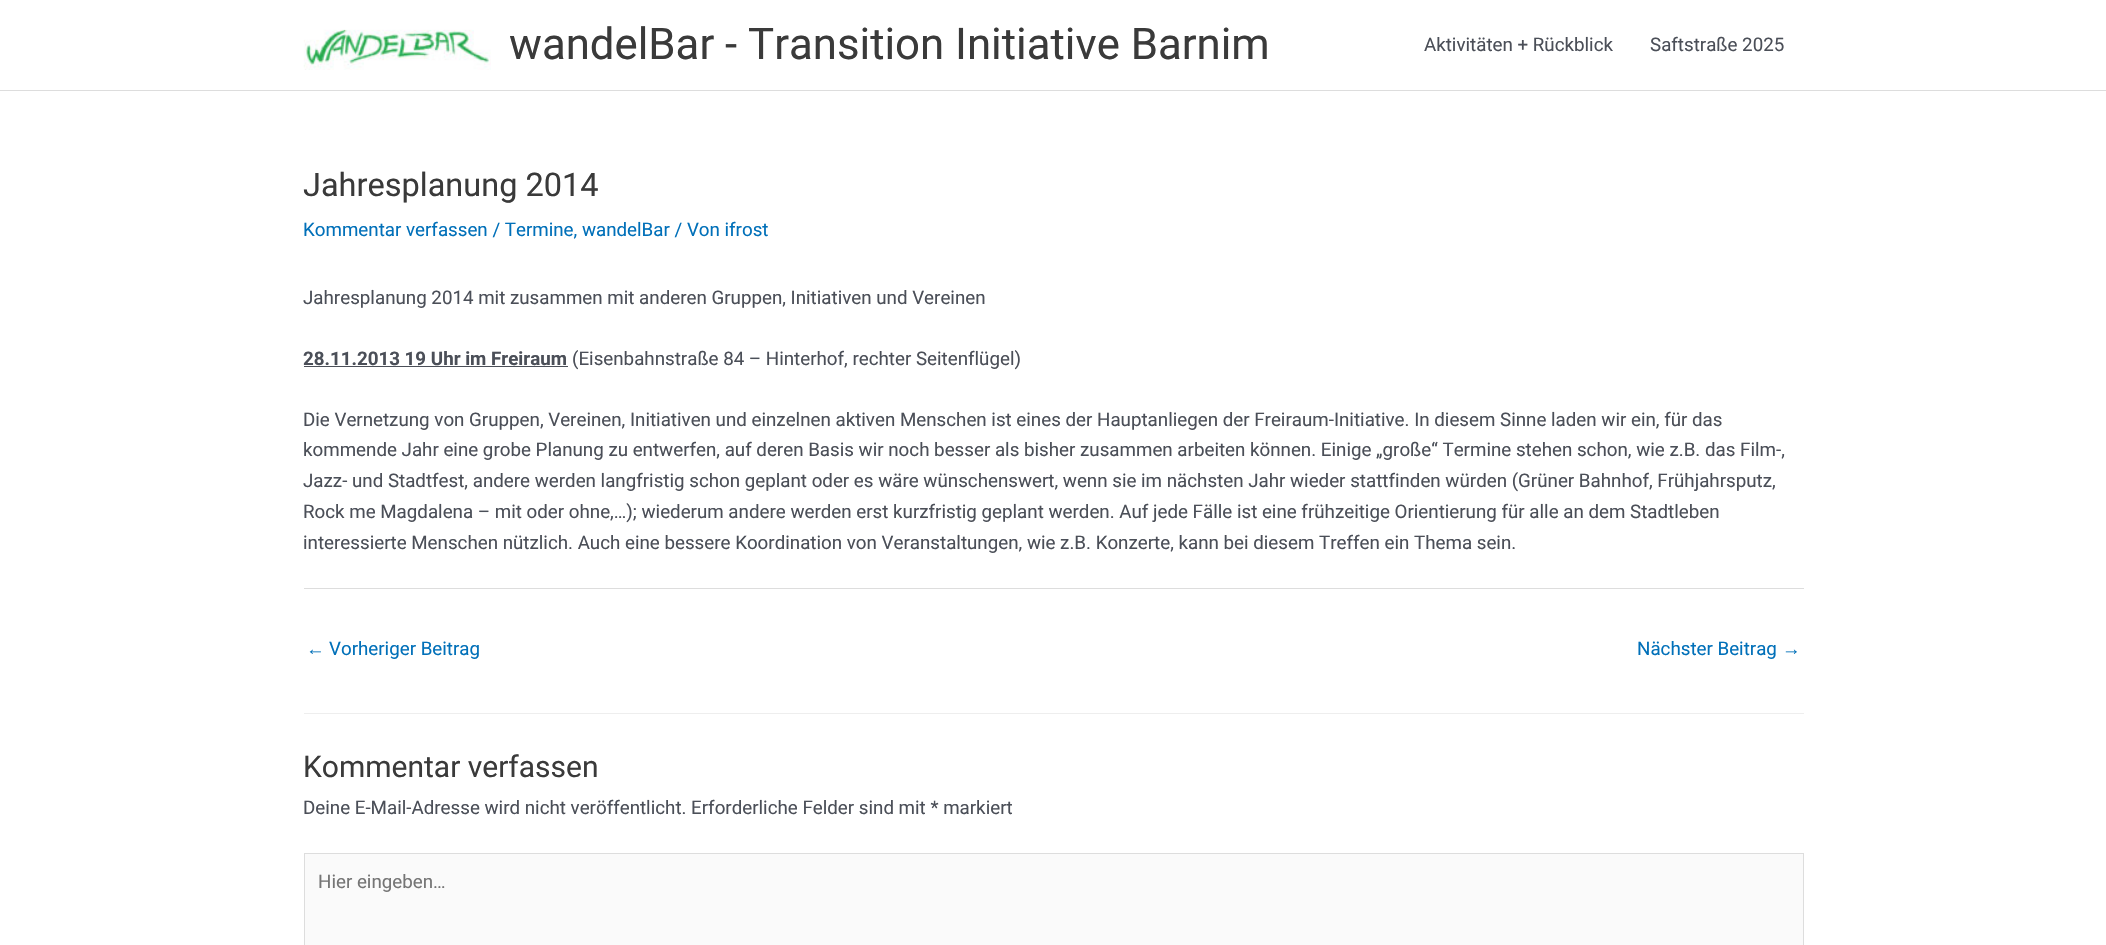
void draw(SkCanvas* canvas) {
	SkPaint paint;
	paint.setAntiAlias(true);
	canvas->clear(0xffffffff);
	paint.setColor(0xffdddddd);
	canvas->drawRect(SkRect::MakeXYWH(0, 90, 2106, 1), paint);
	canvas->drawImageRect(SkImages::DeferredFromEncodedData(SkData::MakeFromFileName("img1.png")), SkRect::MakeXYWH(303, 29, 188, 41), SkSamplingOptions());
	SkFont f1(fontMgr->matchFamilyStyle("Roboto", SkFontStyle::Normal()), 43.75);
	f1.setSubpixel(true);
	paint.setColor(0xff3a3a3a);
	canvas->drawString("wandelBar - Transition Initiative Barnim", 509, 59, f1, paint);
	SkFont f2(fontMgr->matchFamilyStyle("Roboto", SkFontStyle::Normal()), 18.75);
	f2.setSubpixel(true);
	paint.setColor(0xff4b4f58);
	canvas->drawString("Aktivitäten + Rückblick", 1424, 51, f2, paint);
	canvas->drawString("Saftstraße 2025", 1650, 51, f2, paint);
	SkFont f3(fontMgr->matchFamilyStyle("Roboto", SkFontStyle::Normal()), 32.5);
	f3.setSubpixel(true);
	paint.setColor(0xff3a3a3a);
	canvas->drawString("Jahresplanung 2014", 303, 196, f3, paint);
	paint.setColor(0xff0170b9);
	canvas->drawString("Kommentar verfassen / Termine, wandelBar / Von ifrost", 303, 236, f2, paint);
	paint.setColor(0xff4b4f58);
	canvas->drawString("Jahresplanung 2014 mit zusammen mit anderen Gruppen, Initiativen und Vereinen", 303, 304, f2, paint);
	SkFont f4(fontMgr->matchFamilyStyle("Roboto", SkFontStyle::Bold()), 18.75);
	f4.setSubpixel(true);
	canvas->drawString("28.11.2013 19 Uhr im Freiraum", 303, 365, f4, paint);
	canvas->drawRect(SkRect::MakeXYWH(304, 366, 264, 1), paint);
	canvas->drawString("(Eisenbahnstraße 84 – Hinterhof, rechter Seitenflügel)", 572, 365, f2, paint);
	canvas->drawString("Die Vernetzung von Gruppen, Vereinen, Initiativen und einzelnen aktiven Menschen ist eines der Hauptanliegen der Freiraum-Initiative. In diesem Sinne laden wir ein, für das", 303, 426, f2, paint);
	canvas->drawString("kommende Jahr eine grobe Planung zu entwerfen, auf deren Basis wir noch besser als bisher zusammen arbeiten können. Einige „große“ Termine stehen schon, wie z.B. das Film-,", 303, 456, f2, paint);
	canvas->drawString("Jazz- und Stadtfest, andere werden langfristig schon geplant oder es wäre wünschenswert, wenn sie im nächsten Jahr wieder stattfinden würden (Grüner Bahnhof, Frühjahrsputz,", 303, 487, f2, paint);
	canvas->drawString("Rock me Magdalena – mit oder ohne,…); wiederum andere werden erst kurzfristig geplant werden. Auf jede Fälle ist eine frühzeitige Orientierung für alle an dem Stadtleben", 303, 518, f2, paint);
	canvas->drawString("interessierte Menschen nützlich. Auch eine bessere Koordination von Veranstaltungen, wie z.B. Konzerte, kann bei diesem Treffen ein Thema sein.", 303, 549, f2, paint);
	paint.setColor(0xffdddddd);
	canvas->drawRect(SkRect::MakeXYWH(304, 588, 1500, 1), paint);
	SkFont f5(fontMgr->matchFamilyStyle("Liberation Sans", SkFontStyle::Normal()), 18.75);
	f5.setSubpixel(true);
	paint.setColor(0xff0170b9);
	canvas->drawString("←", 306, 655, f5, paint);
	canvas->drawString("Vorheriger Beitrag", 329, 655, f2, paint);
	canvas->drawString("Nächster Beitrag", 1637, 655, f2, paint);
	canvas->drawString("→", 1782, 655, f5, paint);
	paint.setColor(0xffeeeeee);
	canvas->drawRect(SkRect::MakeXYWH(304, 713, 1500, 1), paint);
	SkFont f6(fontMgr->matchFamilyStyle("Roboto", SkFontStyle::Normal()), 30);
	f6.setSubpixel(true);
	paint.setColor(0xff3a3a3a);
	canvas->drawString("Kommentar verfassen", 303, 777, f6, paint);
	paint.setColor(0xff4b4f58);
	canvas->drawString("Deine E-Mail-Adresse wird nicht veröffentlicht. Erforderliche Felder sind mit * markiert", 303, 814, f2, paint);
	paint.setColor(0xfffafafa);
	canvas->drawRect(SkRect::MakeXYWH(304.5, 853.5, 1499, 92), paint);
	paint.setStroke(true);
	paint.setStrokeWidth(1);
	paint.setColor(0xffdddddd);
	canvas->drawRect(SkRect::MakeXYWH(304.5, 853.5, 1499, 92), paint);
	paint.setStroke(false);
	paint.setColor(0xff757575);
	canvas->drawString("Hier eingeben…", 318, 888, f2, paint);
}
